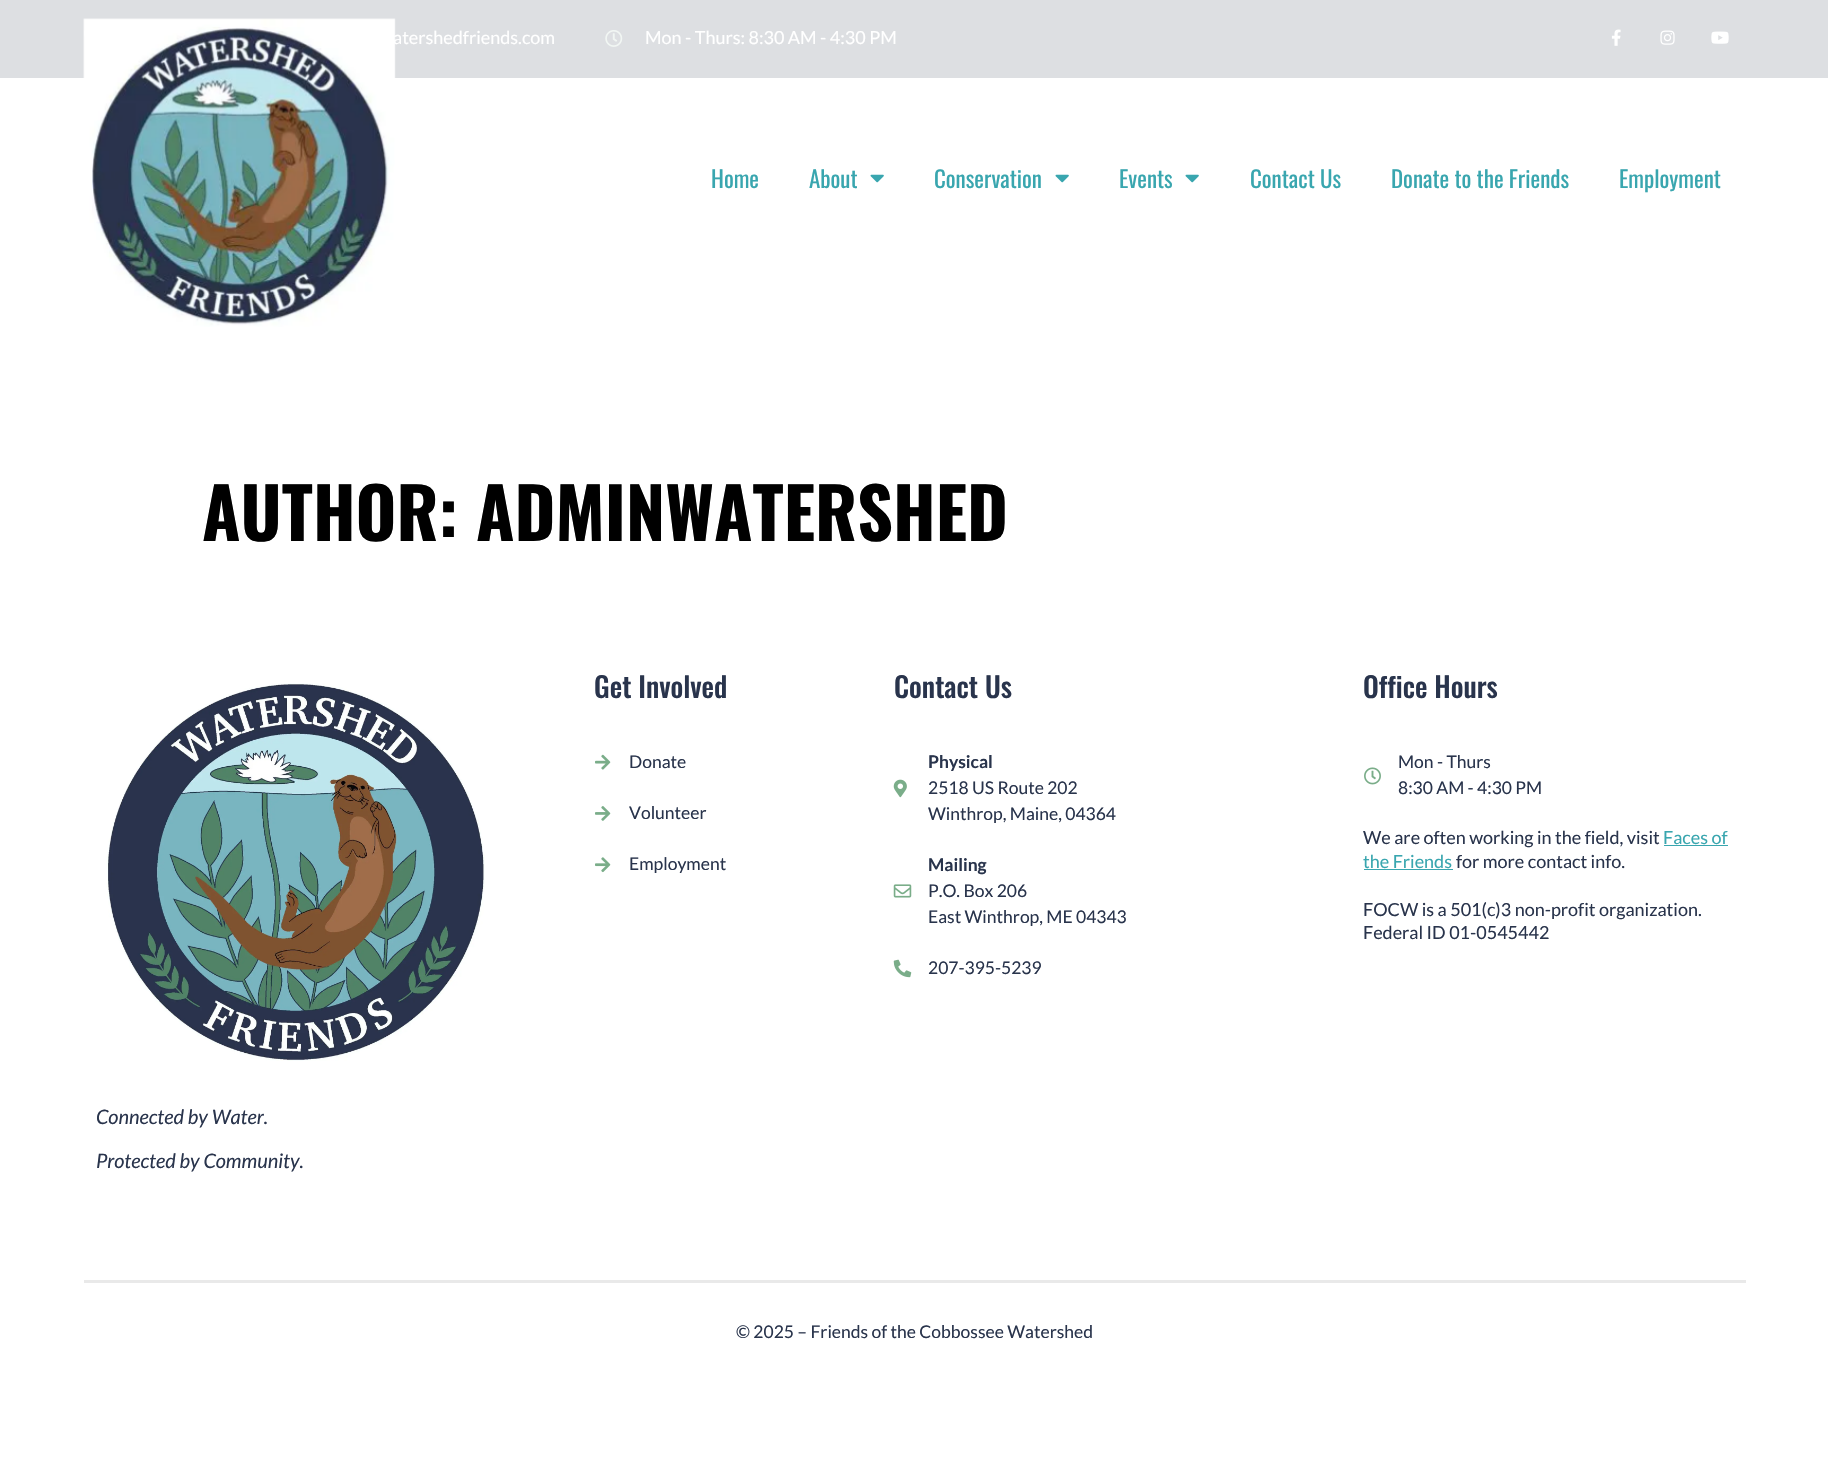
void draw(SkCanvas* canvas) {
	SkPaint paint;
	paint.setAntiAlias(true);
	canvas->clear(0xffffffff);
	paint.setColor(0xffdddfe2);
	canvas->drawRect(SkRect::MakeXYWH(0, 0, 1828, 78), paint);
	canvas->drawImageRect(SkImages::DeferredFromEncodedData(SkData::MakeFromFileName("img1.png")), SkRect::MakeXYWH(84, 30, 1, 8), SkSamplingOptions());
	SkFont f1(fontMgr->matchFamilyStyle("Lato", SkFontStyle::Normal()), 18);
	f1.setSubpixel(true);
	paint.setColor(0xffffffff);
	canvas->drawString("atershedfriends.com", 393, 44, f1, paint);
	canvas->drawImageRect(SkImages::DeferredFromEncodedData(SkData::MakeFromFileName("img2.png")), SkRect::MakeXYWH(605, 30, 18, 17), SkSamplingOptions());
	canvas->drawString("Mon - Thurs: 8:30 AM - 4:30 PM", 645, 44, f1, paint);
	canvas->drawImageRect(SkImages::DeferredFromEncodedData(SkData::MakeFromFileName("img3.png")), SkRect::MakeXYWH(1611, 29, 10, 17), SkSamplingOptions());
	canvas->drawImageRect(SkImages::DeferredFromEncodedData(SkData::MakeFromFileName("img4.png")), SkRect::MakeXYWH(1660, 30, 15, 15), SkSamplingOptions());
	canvas->drawImageRect(SkImages::DeferredFromEncodedData(SkData::MakeFromFileName("img5.png")), SkRect::MakeXYWH(1711, 31, 18, 13), SkSamplingOptions());
	canvas->drawImageRect(SkImages::DeferredFromEncodedData(SkData::MakeFromFileName("img6.png")), SkRect::MakeXYWH(83, 18, 313, 309), SkSamplingOptions());
	SkFont f2(fontMgr->matchFamilyStyle("Oswald", SkFontStyle::Normal()), 23);
	f2.setSubpixel(true);
	paint.setColor(0xff39a6af);
	canvas->drawString("Home", 711, 188, f2, paint);
	canvas->drawString("About", 809, 188, f2, paint);
	canvas->drawImageRect(SkImages::DeferredFromEncodedData(SkData::MakeFromFileName("img7.png")), SkRect::MakeXYWH(870, 174, 14, 9), SkSamplingOptions());
	canvas->drawString("Conservation", 934, 188, f2, paint);
	canvas->drawImageRect(SkImages::DeferredFromEncodedData(SkData::MakeFromFileName("img7.png")), SkRect::MakeXYWH(1055, 174, 14, 9), SkSamplingOptions());
	canvas->drawString("Events", 1119, 188, f2, paint);
	canvas->drawImageRect(SkImages::DeferredFromEncodedData(SkData::MakeFromFileName("img7.png")), SkRect::MakeXYWH(1185, 174, 14, 9), SkSamplingOptions());
	canvas->drawString("Contact Us", 1250, 188, f2, paint);
	canvas->drawString("Donate to the Friends", 1391, 188, f2, paint);
	canvas->drawString("Employment", 1619, 188, f2, paint);
	SkFont f3(fontMgr->matchFamilyStyle("Oswald", SkFontStyle::Bold()), 70);
	f3.setSubpixel(true);
	paint.setColor(0xff000000);
	canvas->drawString("AUTHOR: ADMINWATERSHED", 202, 541, f3, paint);
	SkFont f4(fontMgr->matchFamilyStyle("Oswald", SkFontStyle(500, SkFontStyle::kNormal_Width, SkFontStyle::kUpright_Slant)), 28);
	f4.setSubpixel(true);
	paint.setColor(0xff29344c);
	canvas->drawString("Get Involved", 594, 698, f4, paint);
	canvas->drawImageRect(SkImages::DeferredFromEncodedData(SkData::MakeFromFileName("img8.png")), SkRect::MakeXYWH(595, 754, 16, 16), SkSamplingOptions());
	SkFont f5(fontMgr->matchFamilyStyle("Lato", SkFontStyle::Normal()), 17.5);
	f5.setSubpixel(true);
	canvas->drawString("Donate", 629, 768, f5, paint);
	canvas->drawImageRect(SkImages::DeferredFromEncodedData(SkData::MakeFromFileName("img9.png")), SkRect::MakeXYWH(595, 806, 16, 15), SkSamplingOptions());
	canvas->drawString("Volunteer", 629, 819, f5, paint);
	canvas->drawImageRect(SkImages::DeferredFromEncodedData(SkData::MakeFromFileName("img10.png")), SkRect::MakeXYWH(595, 857, 16, 16), SkSamplingOptions());
	canvas->drawString("Employment", 629, 870, f5, paint);
	canvas->drawString("Contact Us", 894, 698, f4, paint);
	canvas->drawImageRect(SkImages::DeferredFromEncodedData(SkData::MakeFromFileName("img11.png")), SkRect::MakeXYWH(893, 779, 14, 19), SkSamplingOptions());
	SkFont f6(fontMgr->matchFamilyStyle("Lato", SkFontStyle::Bold()), 17.5);
	f6.setSubpixel(true);
	canvas->drawString("Physical", 928, 768, f6, paint);
	canvas->drawString("2518 US Route 202", 928, 794, f5, paint);
	canvas->drawString("Winthrop, Maine, 04364", 928, 820, f5, paint);
	canvas->drawImageRect(SkImages::DeferredFromEncodedData(SkData::MakeFromFileName("img12.png")), SkRect::MakeXYWH(893, 884, 19, 14), SkSamplingOptions());
	canvas->drawString("Mailing", 928, 871, f6, paint);
	canvas->drawString("P.O. Box 206", 928, 897, f5, paint);
	canvas->drawString("East Winthrop, ME 04343", 928, 923, f5, paint);
	canvas->drawImageRect(SkImages::DeferredFromEncodedData(SkData::MakeFromFileName("img13.png")), SkRect::MakeXYWH(893, 959, 19, 19), SkSamplingOptions());
	canvas->drawString("207-395-5239", 928, 974, f5, paint);
	canvas->drawString("Office Hours", 1363, 698, f4, paint);
	canvas->drawImageRect(SkImages::DeferredFromEncodedData(SkData::MakeFromFileName("img14.png")), SkRect::MakeXYWH(1364, 767, 17, 18), SkSamplingOptions());
	canvas->drawString("Mon - Thurs", 1398, 768, f5, paint);
	canvas->drawString("8:30 AM - 4:30 PM", 1398, 794, f5, paint);
	canvas->drawString("We are often working in the field, visit", 1363, 844, f1, paint);
	paint.setColor(0xff39a6af);
	canvas->drawString("Faces of", 1663, 844, f1, paint);
	canvas->drawRect(SkRect::MakeXYWH(1664, 845, 64, 1), paint);
	canvas->drawString("the Friends", 1363, 868, f1, paint);
	canvas->drawRect(SkRect::MakeXYWH(1364, 869, 89, 1), paint);
	paint.setColor(0xff29344c);
	canvas->drawString("for more contact info.", 1456, 868, f1, paint);
	canvas->drawString("FOCW is a 501(c)3 non-profit organization.", 1363, 916, f1, paint);
	canvas->drawString("Federal ID 01-0545442", 1363, 939, f1, paint);
	canvas->drawImageRect(SkImages::DeferredFromEncodedData(SkData::MakeFromFileName("img15.png")), SkRect::MakeXYWH(106, 683, 379, 378), SkSamplingOptions());
	SkFont f7(fontMgr->matchFamilyStyle("Lato", SkFontStyle::Italic()), 20);
	f7.setSubpixel(true);
	canvas->drawString("Connected by Water.", 96, 1124, f7, paint);
	canvas->drawString("Protected by Community.", 96, 1168, f7, paint);
	paint.setColor(0xffe9e9e9);
	canvas->drawRect(SkRect::MakeXYWH(84, 1280, 1662, 3), paint);
	paint.setColor(0xff29344c);
	canvas->drawString("© 2025 – Friends of the Cobbossee Watershed", 736, 1338, f5, paint);
}
